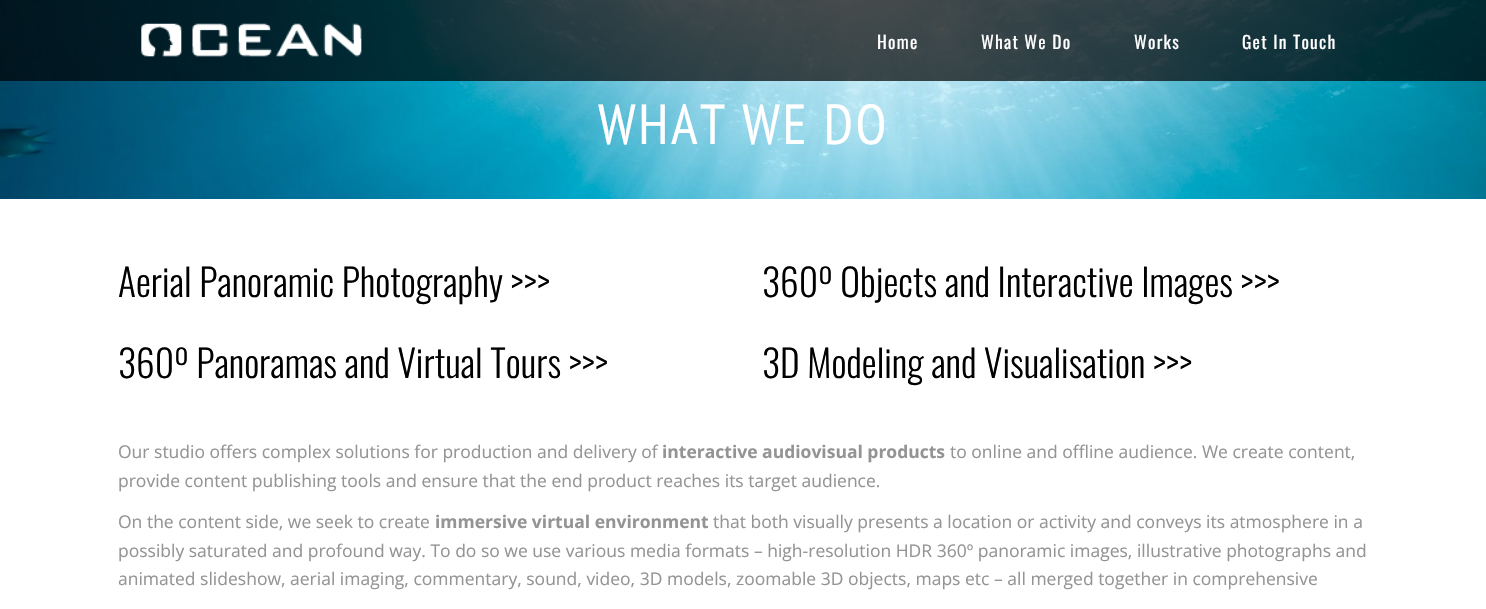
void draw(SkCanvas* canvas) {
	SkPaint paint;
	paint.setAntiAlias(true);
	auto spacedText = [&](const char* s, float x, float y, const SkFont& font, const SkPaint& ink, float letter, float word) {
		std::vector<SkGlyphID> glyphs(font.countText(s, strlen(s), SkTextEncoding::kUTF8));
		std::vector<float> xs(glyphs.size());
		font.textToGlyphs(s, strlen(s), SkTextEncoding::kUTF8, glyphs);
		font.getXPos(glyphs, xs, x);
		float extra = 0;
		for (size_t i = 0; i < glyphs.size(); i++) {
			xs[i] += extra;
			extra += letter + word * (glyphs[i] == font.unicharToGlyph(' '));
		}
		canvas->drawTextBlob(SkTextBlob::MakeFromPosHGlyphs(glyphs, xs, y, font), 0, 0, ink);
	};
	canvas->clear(0xffffffff);
	canvas->drawImageRect(SkImages::DeferredFromEncodedData(SkData::MakeFromFileName("img2.png")), SkRect::MakeXYWH(0, 0, 1486, 199), SkSamplingOptions());
	paint.setColor(0xb3000000);
	canvas->drawRect(SkRect::MakeXYWH(0, 0, 1486, 81), paint);
	canvas->drawImageRect(SkImages::DeferredFromEncodedData(SkData::MakeFromFileName("img1.png")), SkRect::MakeXYWH(141, 23, 221, 34), SkSamplingOptions());
	SkFont f1(fontMgr->matchFamilyStyle("Oswald", SkFontStyle::Normal()), 17.5);
	f1.setSubpixel(true);
	paint.setColor(0xffffffff);
	spacedText("Home", 877, 49, f1, paint, 1.25, 0);
	spacedText("What We Do", 981, 49, f1, paint, 1.25, 0);
	spacedText("Works", 1134, 49, f1, paint, 1.25, 0);
	spacedText("Get In Touch", 1242, 49, f1, paint, 1.25, 0);
	SkFont f2(fontMgr->matchFamilyStyle("PT Sans Narrow", SkFontStyle::Normal()), 56.25);
	f2.setSubpixel(true);
	spacedText("WHAT WE DO", 598, 144, f2, paint, 2.5, 0);
	SkFont f3(fontMgr->matchFamilyStyle("Oswald", SkFontStyle(300, SkFontStyle::kNormal_Width, SkFontStyle::kUpright_Slant)), 37.5);
	f3.setSubpixel(true);
	paint.setColor(0xff000000);
	canvas->drawString("Aerial Panoramic Photography >>>", 118, 297, f3, paint);
	canvas->drawString("360º Panoramas and Virtual Tours >>>", 118, 378, f3, paint);
	canvas->drawString("360º Objects and Interactive Images >>>", 762, 297, f3, paint);
	canvas->drawString("3D Modeling and Visualisation >>>", 762, 378, f3, paint);
	SkFont f4(fontMgr->matchFamilyStyle("Open Sans", SkFontStyle::Normal()), 17.5);
	f4.setSubpixel(true);
	paint.setColor(0xff949494);
	canvas->drawString("Our studio offers complex solutions for production and delivery of", 118, 458, f4, paint);
	SkFont f5(fontMgr->matchFamilyStyle("Open Sans", SkFontStyle::Bold()), 17.5);
	f5.setSubpixel(true);
	canvas->drawString("interactive audiovisual products", 662, 458, f5, paint);
	canvas->drawString("to online and offline audience. We create content,", 950, 458, f4, paint);
	canvas->drawString("provide content publishing tools and ensure that the end product reaches its target audience.", 118, 487, f4, paint);
	canvas->drawString("On the content side, we seek to create", 118, 528, f4, paint);
	canvas->drawString("immersive virtual environment", 435, 528, f5, paint);
	canvas->drawString("that both visually presents a location or activity and conveys its atmosphere in a", 713, 528, f4, paint);
	canvas->drawString("possibly saturated and profound way. To do so we use various media formats – high-resolution HDR 360º panoramic images, illustrative photographs and", 118, 557, f4, paint);
	canvas->drawString("animated slideshow, aerial imaging, commentary, sound, video, 3D models, zoomable 3D objects, maps etc – all merged together in comprehensive", 118, 585, f4, paint);
}
